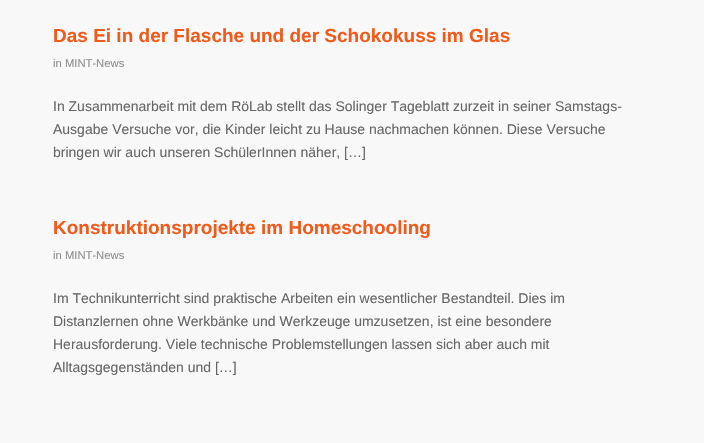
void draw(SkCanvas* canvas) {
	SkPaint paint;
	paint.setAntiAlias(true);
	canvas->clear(0xfff8f8f8);
	SkFont f1(fontMgr->matchFamilyStyle("Liberation Sans", SkFontStyle::Bold()), 19);
	f1.setSubpixel(true);
	paint.setColor(0xfff05a1a);
	canvas->drawString("Das Ei in der Flasche und der Schokokuss im Glas", 53, 42, f1, paint);
	SkFont f2(fontMgr->matchFamilyStyle("Liberation Sans", SkFontStyle::Normal()), 11.25);
	f2.setSubpixel(true);
	paint.setColor(0xff8d8d8d);
	canvas->drawString("in MINT-News", 53, 67, f2, paint);
	SkFont f3(fontMgr->matchFamilyStyle("Liberation Sans", SkFontStyle::Normal()), 14);
	f3.setSubpixel(true);
	paint.setColor(0xff666666);
	canvas->drawString("In Zusammenarbeit mit dem RöLab stellt das Solinger Tageblatt zurzeit in seiner Samstags-", 53, 111, f3, paint);
	canvas->drawString("Ausgabe Versuche vor, die Kinder leicht zu Hause nachmachen können. Diese Versuche", 53, 134, f3, paint);
	canvas->drawString("bringen wir auch unseren SchülerInnen näher, […]", 53, 157, f3, paint);
	paint.setColor(0xfff05a1a);
	canvas->drawString("Konstruktionsprojekte im Homeschooling", 53, 234, f1, paint);
	paint.setColor(0xff8d8d8d);
	canvas->drawString("in MINT-News", 53, 259, f2, paint);
	paint.setColor(0xff666666);
	canvas->drawString("Im Technikunterricht sind praktische Arbeiten ein wesentlicher Bestandteil. Dies im", 53, 303, f3, paint);
	canvas->drawString("Distanzlernen ohne Werkbänke und Werkzeuge umzusetzen, ist eine besondere", 53, 326, f3, paint);
	canvas->drawString("Herausforderung. Viele technische Problemstellungen lassen sich aber auch mit", 53, 349, f3, paint);
	canvas->drawString("Alltagsgegenständen und […]", 53, 372, f3, paint);
}
